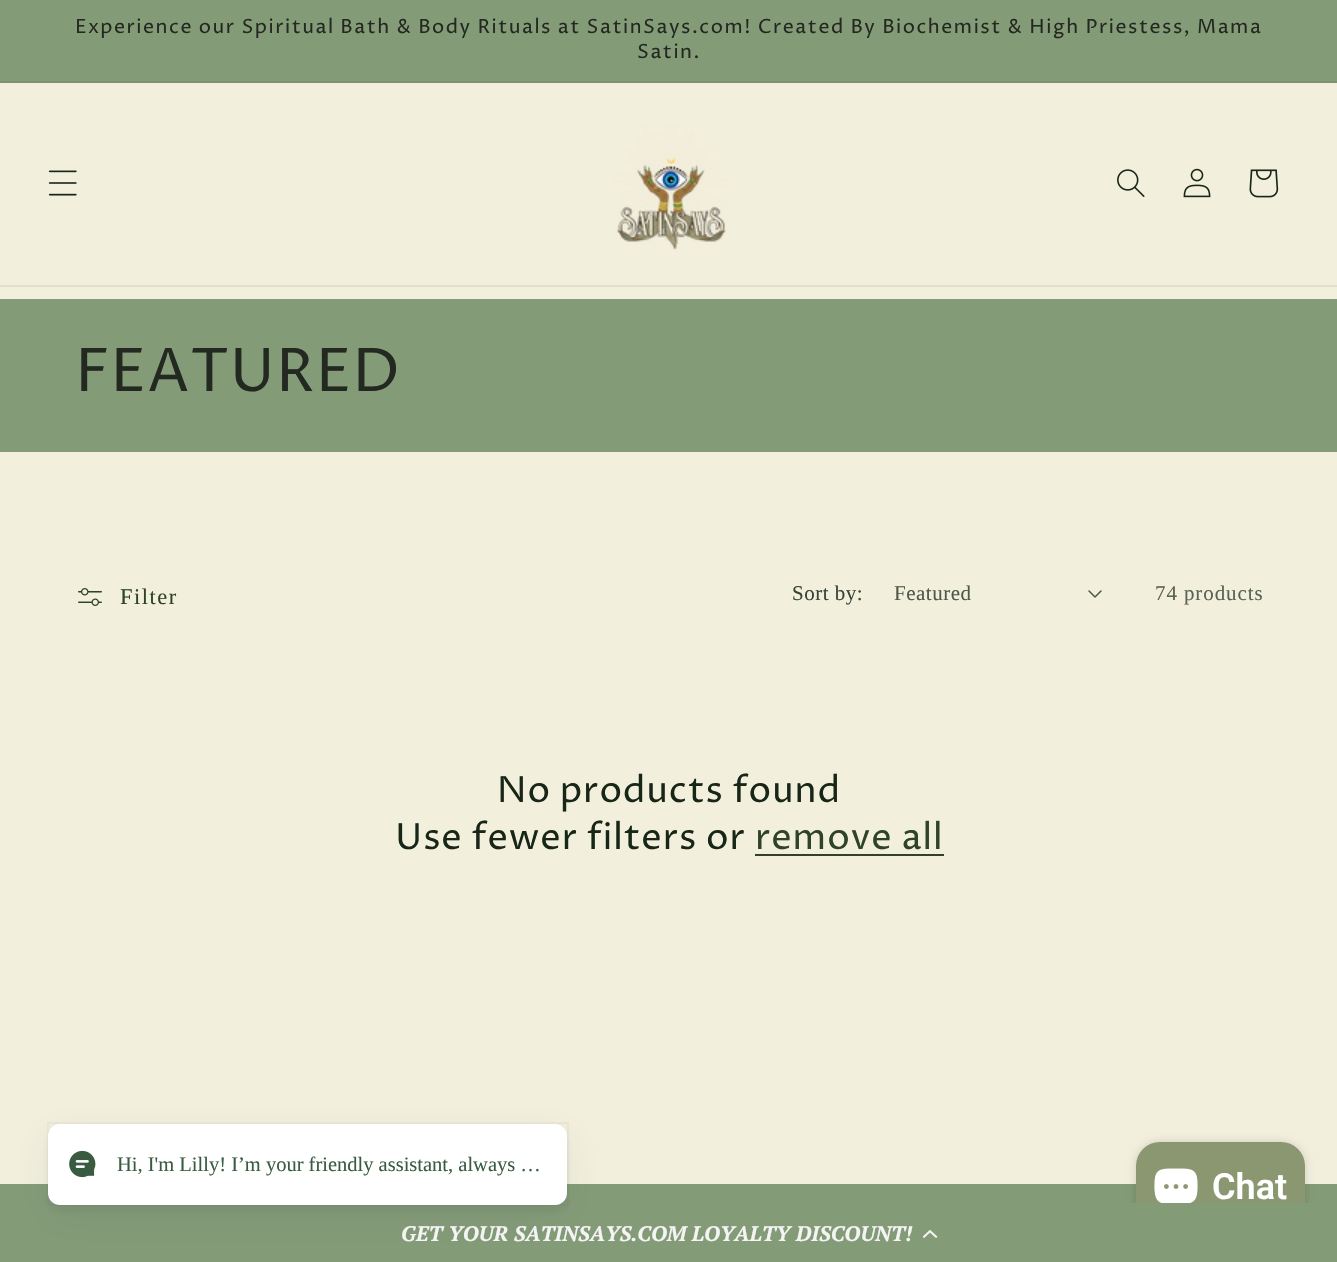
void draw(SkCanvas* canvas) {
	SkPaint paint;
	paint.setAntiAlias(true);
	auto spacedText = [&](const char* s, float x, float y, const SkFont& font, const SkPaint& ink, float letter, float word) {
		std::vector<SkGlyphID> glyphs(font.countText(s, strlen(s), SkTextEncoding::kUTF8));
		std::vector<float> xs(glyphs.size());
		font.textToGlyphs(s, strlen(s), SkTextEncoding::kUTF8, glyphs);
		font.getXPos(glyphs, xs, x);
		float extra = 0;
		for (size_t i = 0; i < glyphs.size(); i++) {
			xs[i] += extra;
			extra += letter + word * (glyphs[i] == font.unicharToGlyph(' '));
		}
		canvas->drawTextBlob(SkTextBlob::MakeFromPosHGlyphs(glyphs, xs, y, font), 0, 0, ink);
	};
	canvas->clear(0xfff2efdd);
	paint.setColor(0xff849b77);
	canvas->drawRect(SkRect::MakeXYWH(0, 0, 1337, 81), paint);
	paint.setColor(0xff7c9270);
	canvas->drawRect(SkRect::MakeXYWH(0, 81, 1337, 2), paint);
	SkFont f1(fontMgr->matchFamilyStyle("Proza Libre", SkFontStyle::Normal()), 19.5);
	f1.setSubpixel(true);
	paint.setColor(0xff232820);
	spacedText("Experience our Spiritual Bath & Body Rituals at SatinSays.com! Created By Biochemist & High Priestess, Mama", 75, 33, f1, paint, 1.5, 0);
	spacedText("Satin.", 637, 58, f1, paint, 1.5, 0);
	paint.setColor(0xffe1dfcd);
	canvas->drawRect(SkRect::MakeXYWH(0, 285, 1337, 2), paint);
	canvas->drawImageRect(SkImages::DeferredFromEncodedData(SkData::MakeFromFileName("img1.png")), SkRect::MakeXYWH(48, 170, 29, 26), SkSamplingOptions());
	canvas->drawImageRect(SkImages::DeferredFromEncodedData(SkData::MakeFromFileName("img2.png")), SkRect::MakeXYWH(611, 125, 116, 125), SkSamplingOptions());
	canvas->drawImageRect(SkImages::DeferredFromEncodedData(SkData::MakeFromFileName("img3.png")), SkRect::MakeXYWH(1117, 169, 28, 28), SkSamplingOptions());
	canvas->drawImageRect(SkImages::DeferredFromEncodedData(SkData::MakeFromFileName("img4.png")), SkRect::MakeXYWH(1183, 168, 28, 30), SkSamplingOptions());
	canvas->drawImageRect(SkImages::DeferredFromEncodedData(SkData::MakeFromFileName("img5.png")), SkRect::MakeXYWH(1249, 169, 30, 29), SkSamplingOptions());
	paint.setColor(0xff849b77);
	canvas->drawRect(SkRect::MakeXYWH(0, 299, 1337, 153), paint);
	SkFont f2(fontMgr->matchFamilyStyle("Proza Libre", SkFontStyle::Normal()), 60);
	f2.setSubpixel(true);
	paint.setColor(0xff232820);
	spacedText("FEATURED", 75, 391, f2, paint, 0.9, 0);
	canvas->drawImageRect(SkImages::DeferredFromEncodedData(SkData::MakeFromFileName("img6.png")), SkRect::MakeXYWH(78, 588, 24, 18), SkSamplingOptions());
	SkFont f3(fontMgr->matchFamilyStyle("Liberation Serif", SkFontStyle::Normal()), 22.5);
	f3.setSubpixel(true);
	paint.setColor(0xff2e432a);
	spacedText("Filter", 120, 604, f3, paint, 1.5, 0);
	SkFont f4(fontMgr->matchFamilyStyle("Liberation Serif", SkFontStyle::Normal()), 21);
	f4.setSubpixel(true);
	paint.setColor(0xff394436);
	spacedText("Sort by:", 792, 600, f4, paint, 0.5, 0);
	paint.setColor(0xff4f5849);
	spacedText("Featured", 894, 600, f4, paint, 0.5, 0);
	canvas->drawImageRect(SkImages::DeferredFromEncodedData(SkData::MakeFromFileName("img7.png")), SkRect::MakeXYWH(1088, 590, 14, 8), SkSamplingOptions());
	paint.setColor(0xff596253);
	spacedText("74 products", 1155, 600, f4, paint, 0.9, 0);
	SkFont f5(fontMgr->matchFamilyStyle("Proza Libre", SkFontStyle::Normal()), 36);
	f5.setSubpixel(true);
	paint.setColor(0xff182618);
	spacedText("No products found", 497, 802, f5, paint, 0.9, 0);
	spacedText("Use fewer filters or", 395, 849, f5, paint, 0.9, 0);
	paint.setColor(0xff2e432a);
	spacedText("remove all", 755, 849, f5, paint, 0.9, 0);
	canvas->drawRect(SkRect::MakeXYWH(755, 854, 189, 2), paint);
	paint.setColor(0xff849b77);
	canvas->drawRect(SkRect::MakeXYWH(0, 1184, 1337, 19), paint);
	paint.setColor(0x26000000);
	paint.setMaskFilter(SkMaskFilter::MakeBlur(kNormal_SkBlurStyle, 4));
	canvas->drawRoundRect(SkRect::MakeXYWH(1136, 1142, 169, 90), 24, 24, paint);
	paint.setMaskFilter(nullptr);
	paint.setColor(0xff8a9771);
	canvas->drawRoundRect(SkRect::MakeXYWH(1136, 1142, 169, 90), 24, 24, paint);
	paint.setColor(0xff849b77);
	canvas->drawRect(SkRect::MakeXYWH(0, 1203, 1337, 59), paint);
	paint.setColor(0x14373f47);
	paint.setMaskFilter(SkMaskFilter::MakeBlur(kNormal_SkBlurStyle, 19));
	canvas->drawRoundRect(SkRect::MakeXYWH(48, 1136, 519, 82), 12, 12, paint);
	paint.setMaskFilter(nullptr);
	paint.setMaskFilter(SkMaskFilter::MakeBlur(kNormal_SkBlurStyle, 3));
	canvas->drawRoundRect(SkRect::MakeXYWH(48, 1130, 519, 82), 12, 12, paint);
	paint.setMaskFilter(nullptr);
	paint.setStroke(true);
	paint.setStrokeWidth(2);
	paint.setColor(0x0a373f47);
	canvas->drawRect(SkRect::MakeXYWH(48, 1123, 520, 82), paint);
	paint.setStroke(false);
	paint.setColor(0xffffffff);
	canvas->drawRoundRect(SkRect::MakeXYWH(48, 1124, 519, 81), 12, 12, paint);
	canvas->drawImageRect(SkImages::DeferredFromEncodedData(SkData::MakeFromFileName("img8.png")), SkRect::MakeXYWH(69, 1150, 27, 28), SkSamplingOptions());
	SkFont f6(fontMgr->matchFamilyStyle("Liberation Serif", SkFontStyle::Normal()), 20.5);
	f6.setSubpixel(true);
	paint.setColor(0xff395c41);
	canvas->drawString("Hi, I'm Lilly! I’m your friendly assistant, always …", 117, 1171, f6, paint);
	canvas->drawImageRect(SkImages::DeferredFromEncodedData(SkData::MakeFromFileName("img9.png")), SkRect::MakeXYWH(1154, 1168, 44, 35), SkSamplingOptions());
	SkFont f7(fontMgr->matchFamilyStyle("Roboto", SkFontStyle(600, SkFontStyle::kNormal_Width, SkFontStyle::kUpright_Slant)), 36);
	f7.setSubpixel(true);
	paint.setColor(0xffffffff);
	canvas->drawString("Chat", 1212, 1199, f7, paint);
	SkFont f8(fontMgr->matchFamilyStyle("PT Serif", SkFontStyle::BoldItalic()), 21);
	f8.setSubpixel(true);
	paint.setColor(0xfff4f4f4);
	canvas->drawString("GET YOUR SATINSAYS.COM LOYALTY DISCOUNT!", 401, 1241, f8, paint);
	canvas->drawImageRect(SkImages::DeferredFromEncodedData(SkData::MakeFromFileName("img10.png")), SkRect::MakeXYWH(923, 1229, 15, 9), SkSamplingOptions());
}
